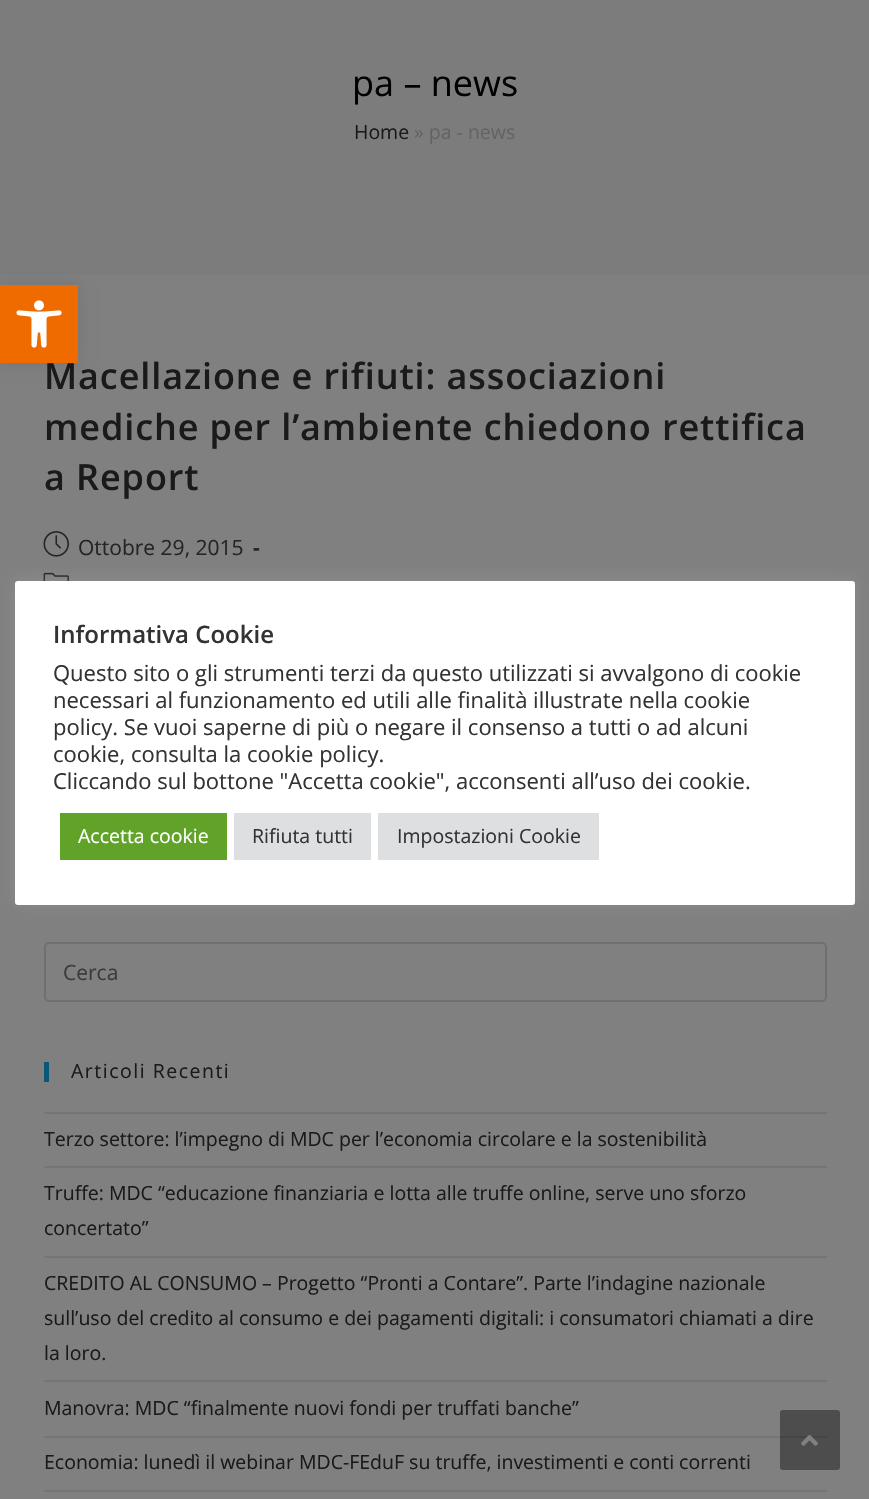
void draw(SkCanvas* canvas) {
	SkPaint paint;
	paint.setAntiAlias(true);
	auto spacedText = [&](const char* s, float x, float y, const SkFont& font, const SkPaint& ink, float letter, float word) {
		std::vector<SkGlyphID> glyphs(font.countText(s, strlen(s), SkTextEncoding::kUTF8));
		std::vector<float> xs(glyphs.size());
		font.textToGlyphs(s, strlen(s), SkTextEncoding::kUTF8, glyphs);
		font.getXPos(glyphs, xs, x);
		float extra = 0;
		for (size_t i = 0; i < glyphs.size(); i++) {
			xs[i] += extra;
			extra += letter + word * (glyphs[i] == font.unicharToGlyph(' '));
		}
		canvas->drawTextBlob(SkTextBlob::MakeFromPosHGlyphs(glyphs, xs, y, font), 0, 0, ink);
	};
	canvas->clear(0xff808080);
	paint.setColor(0xff7c7c7c);
	canvas->drawRect(SkRect::MakeXYWH(0, 0, 869, 275), paint);
	SkFont f1(fontMgr->matchFamilyStyle("Open Sans", SkFontStyle::Normal()), 36);
	f1.setSubpixel(true);
	paint.setColor(0xff000000);
	canvas->drawString("pa – news", 352, 96, f1, paint);
	SkFont f2(fontMgr->matchFamilyStyle("Open Sans", SkFontStyle::Normal()), 19.5);
	f2.setSubpixel(true);
	paint.setColor(0xff1a1a1a);
	canvas->drawString("Home", 354, 139, f2, paint);
	paint.setColor(0xff636363);
	canvas->drawString("» pa - news", 414, 139, f2, paint);
	SkFont f3(fontMgr->matchFamilyStyle("Open Sans", SkFontStyle(600, SkFontStyle::kNormal_Width, SkFontStyle::kUpright_Slant)), 36);
	f3.setSubpixel(true);
	paint.setColor(0xff1a1a1a);
	spacedText("Macellazione e rifiuti: associazioni", 44, 389, f3, paint, 0.9, 0);
	spacedText("mediche per l’ambiente chiedono rettifica", 44, 440, f3, paint, 0.9, 0);
	spacedText("a Report", 44, 490, f3, paint, 0.9, 0);
	canvas->drawImageRect(SkImages::DeferredFromEncodedData(SkData::MakeFromFileName("img1.png")), SkRect::MakeXYWH(43, 531, 26, 26), SkSamplingOptions());
	SkFont f4(fontMgr->matchFamilyStyle("Open Sans", SkFontStyle::Normal()), 21);
	f4.setSubpixel(true);
	paint.setColor(0xff252525);
	canvas->drawString("Ottobre 29, 2015", 78, 555, f4, paint);
	SkFont f5(fontMgr->matchFamilyStyle("Open Sans", SkFontStyle::Bold()), 21);
	f5.setSubpixel(true);
	canvas->drawString("-", 253, 555, f5, paint);
	canvas->drawImageRect(SkImages::DeferredFromEncodedData(SkData::MakeFromFileName("img2.png")), SkRect::MakeXYWH(43, 572, 26, 9), SkSamplingOptions());
	paint.setStroke(true);
	paint.setStrokeWidth(2);
	paint.setColor(0xff6f6f6f);
	canvas->drawRoundRect(SkRect::MakeXYWH(45, 943, 781, 58), 4, 4, paint);
	paint.setStroke(false);
	paint.setColor(0xff3b3b3b);
	canvas->drawString("Cerca", 63, 980, f4, paint);
	paint.setColor(0xff0a5878);
	canvas->drawRect(SkRect::MakeXYWH(44, 1062, 5, 20), paint);
	paint.setColor(0xff1a1a1a);
	spacedText("Articoli Recenti", 71, 1078, f2, paint, 1.5, 0);
	paint.setColor(0xff757575);
	canvas->drawRect(SkRect::MakeXYWH(44, 1112, 783, 2), paint);
	canvas->drawRect(SkRect::MakeXYWH(44, 1166, 783, 2), paint);
	paint.setColor(0xff1a1a1a);
	canvas->drawString("Terzo settore: l’impegno di MDC per l’economia circolare e la sostenibilità", 44, 1146, f2, paint);
	paint.setColor(0xff757575);
	canvas->drawRect(SkRect::MakeXYWH(44, 1256, 783, 2), paint);
	paint.setColor(0xff1a1a1a);
	canvas->drawString("Truffe: MDC “educazione finanziaria e lotta alle truffe online, serve uno sforzo", 44, 1200, f2, paint);
	canvas->drawString("concertato”", 44, 1235, f2, paint);
	paint.setColor(0xff757575);
	canvas->drawRect(SkRect::MakeXYWH(44, 1380, 783, 2), paint);
	paint.setColor(0xff1a1a1a);
	canvas->drawString("CREDITO AL CONSUMO – Progetto “Pronti a Contare”. Parte l’indagine nazionale", 44, 1290, f2, paint);
	canvas->drawString("sull’uso del credito al consumo e dei pagamenti digitali: i consumatori chiamati a dire", 44, 1325, f2, paint);
	canvas->drawString("la loro.", 44, 1360, f2, paint);
	paint.setColor(0xff757575);
	canvas->drawRect(SkRect::MakeXYWH(44, 1436, 783, 2), paint);
	paint.setColor(0xff1a1a1a);
	canvas->drawString("Manovra: MDC “finalmente nuovi fondi per truffati banche”", 44, 1415, f2, paint);
	paint.setColor(0xff757575);
	canvas->drawRect(SkRect::MakeXYWH(44, 1490, 783, 2), paint);
	paint.setColor(0xff1a1a1a);
	canvas->drawString("Economia: lunedì il webinar MDC-FEduF su truffe, investimenti e conti correnti", 44, 1469, f2, paint);
	paint.setColor(0x1a000000);
	paint.setMaskFilter(SkMaskFilter::MakeBlur(kNormal_SkBlurStyle, 7.5));
	canvas->drawRect(SkRect::MakeXYWH(0, 285, 78, 78), paint);
	paint.setMaskFilter(nullptr);
	paint.setColor(0xffef6b00);
	canvas->drawRect(SkRect::MakeXYWH(0, 285, 78, 78), paint);
	canvas->drawImageRect(SkImages::DeferredFromEncodedData(SkData::MakeFromFileName("img3.png")), SkRect::MakeXYWH(16, 300, 46, 48), SkSamplingOptions());
	paint.setColor(0x4dacabab);
	paint.setMaskFilter(SkMaskFilter::MakeBlur(kNormal_SkBlurStyle, 7.5));
	canvas->drawRoundRect(SkRect::MakeXYWH(15, 579, 840, 324), 3, 3, paint);
	paint.setMaskFilter(nullptr);
	paint.setColor(0xffffffff);
	canvas->drawRoundRect(SkRect::MakeXYWH(15, 581, 840, 324), 3, 3, paint);
	SkFont f6(fontMgr->matchFamilyStyle("Open Sans", SkFontStyle(600, SkFontStyle::kNormal_Width, SkFontStyle::kUpright_Slant)), 24);
	f6.setSubpixel(true);
	paint.setColor(0xff333333);
	canvas->drawString("Informativa Cookie", 53, 643, f6, paint);
	SkFont f7(fontMgr->matchFamilyStyle("Open Sans", SkFontStyle::Normal()), 22);
	f7.setSubpixel(true);
	canvas->drawString("Questo sito o gli strumenti terzi da questo utilizzati si avvalgono di cookie", 53, 681, f7, paint);
	canvas->drawString("necessari al funzionamento ed utili alle finalità illustrate nella cookie", 53, 708, f7, paint);
	canvas->drawString("policy. Se vuoi saperne di più o negare il consenso a tutti o ad alcuni", 53, 735, f7, paint);
	canvas->drawString("cookie, consulta la cookie policy.", 53, 762, f7, paint);
	canvas->drawString("Cliccando sul bottone \"Accetta cookie\", acconsenti all’uso dei cookie.", 53, 789, f7, paint);
	paint.setColor(0xff61a229);
	canvas->drawRect(SkRect::MakeXYWH(60, 813, 167, 47), paint);
	paint.setColor(0xffffffff);
	canvas->drawString("Accetta cookie", 78, 843, f2, paint);
	paint.setColor(0xffdedfe0);
	canvas->drawRect(SkRect::MakeXYWH(234, 813, 137, 47), paint);
	paint.setColor(0xff333333);
	canvas->drawString("Rifiuta tutti", 252, 843, f2, paint);
	paint.setColor(0xffdedfe0);
	canvas->drawRect(SkRect::MakeXYWH(378, 813, 221, 47), paint);
	paint.setColor(0xff333333);
	canvas->drawString("Impostazioni Cookie", 397, 843, f2, paint);
	paint.setColor(0x66000000);
	canvas->drawRoundRect(SkRect::MakeXYWH(780, 1410, 60, 60), 3, 3, paint);
	canvas->drawImageRect(SkImages::DeferredFromEncodedData(SkData::MakeFromFileName("img4.png")), SkRect::MakeXYWH(801, 1435, 17, 11), SkSamplingOptions());
}
